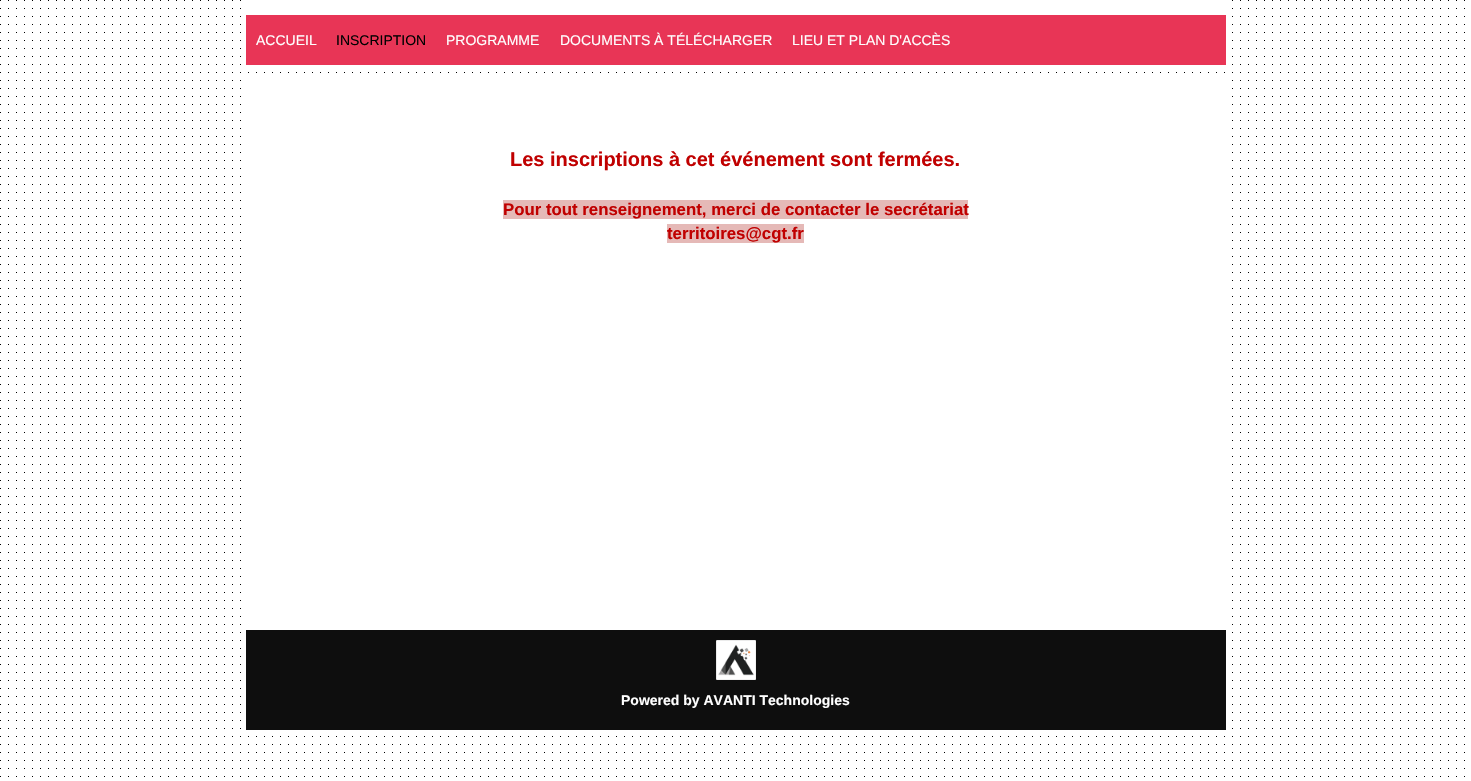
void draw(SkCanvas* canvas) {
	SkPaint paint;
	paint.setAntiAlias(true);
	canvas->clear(0xffffffff);
	canvas->drawImageRect(SkImages::DeferredFromEncodedData(SkData::MakeFromFileName("img1.png")), SkRect::MakeXYWH(0, 0, 1465, 777), SkSamplingOptions());
	paint.setColor(0xffffffff);
	canvas->drawRect(SkRect::MakeXYWH(248, 0, 977, 9), paint);
	paint.setColor(0xffe83556);
	canvas->drawRect(SkRect::MakeXYWH(246, 15, 980, 50), paint);
	SkFont f1(fontMgr->matchFamilyStyle("Liberation Sans", SkFontStyle::Normal()), 14);
	f1.setSubpixel(true);
	paint.setColor(0xffffffff);
	canvas->drawString("ACCUEIL", 256, 45, f1, paint);
	paint.setColor(0xff000000);
	canvas->drawString("INSCRIPTION", 336, 45, f1, paint);
	paint.setColor(0xffffffff);
	canvas->drawString("PROGRAMME", 446, 45, f1, paint);
	canvas->drawString("DOCUMENTS À TÉLÉCHARGER", 560, 45, f1, paint);
	canvas->drawString("LIEU ET PLAN D'ACCÈS", 792, 45, f1, paint);
	canvas->drawRect(SkRect::MakeXYWH(248, 80, 977, 545), paint);
	SkFont f2(fontMgr->matchFamilyStyle("Liberation Sans", SkFontStyle::Bold()), 20);
	f2.setSubpixel(true);
	paint.setColor(0xffc00000);
	canvas->drawString("Les inscriptions à cet événement sont fermées.", 510, 166, f2, paint);
	paint.setColor(0xffe5b9b7);
	canvas->drawRect(SkRect::MakeXYWH(503, 200, 465, 19), paint);
	SkFont f3(fontMgr->matchFamilyStyle("Liberation Sans", SkFontStyle::Bold()), 16.8);
	f3.setSubpixel(true);
	paint.setColor(0xffc00000);
	canvas->drawString("Pour tout renseignement, merci de contacter le secrétariat", 503, 215, f3, paint);
	paint.setColor(0xffe5b9b7);
	canvas->drawRect(SkRect::MakeXYWH(667, 224, 137, 19), paint);
	paint.setColor(0xffc00000);
	canvas->drawString("territoires@cgt.fr", 667, 239, f3, paint);
	paint.setColor(0xff0e0e0e);
	canvas->drawRect(SkRect::MakeXYWH(246, 630, 980, 100), paint);
	canvas->drawImageRect(SkImages::DeferredFromEncodedData(SkData::MakeFromFileName("img2.png")), SkRect::MakeXYWH(716, 640, 40, 40), SkSamplingOptions());
	SkFont f4(fontMgr->matchFamilyStyle("Liberation Sans", SkFontStyle::Bold()), 14);
	f4.setSubpixel(true);
	paint.setColor(0xffffffff);
	canvas->drawString("Powered by AVANTI Technologies", 621, 705, f4, paint);
}
